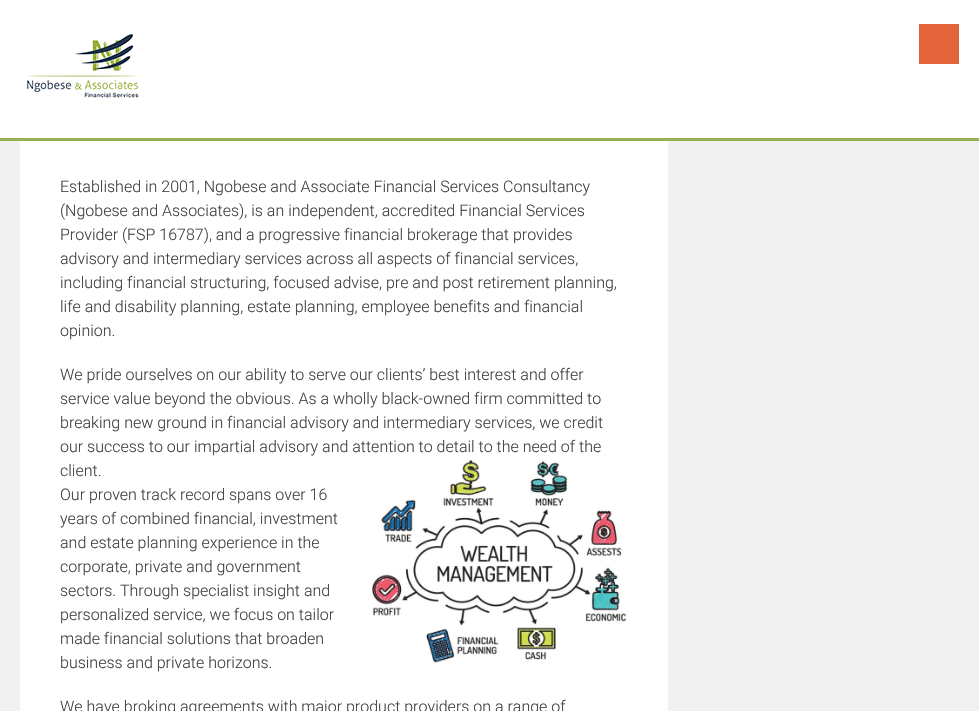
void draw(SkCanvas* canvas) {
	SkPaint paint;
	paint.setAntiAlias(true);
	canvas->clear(0xfff1f1f1);
	paint.setColor(0xffffffff);
	canvas->drawRect(SkRect::MakeXYWH(0, 0, 979, 138), paint);
	paint.setColor(0xff94b050);
	canvas->drawRect(SkRect::MakeXYWH(0, 138, 979, 3), paint);
	canvas->drawImageRect(SkImages::DeferredFromEncodedData(SkData::MakeFromFileName("img1.png")), SkRect::MakeXYWH(27, 34, 112, 64), SkSamplingOptions());
	paint.setColor(0xffe3633b);
	canvas->drawRect(SkRect::MakeXYWH(919, 24, 40, 40), paint);
	paint.setColor(0xffffffff);
	canvas->drawRect(SkRect::MakeXYWH(20, 141, 648, 570), paint);
	SkFont f1(fontMgr->matchFamilyStyle("Roboto", SkFontStyle(300, SkFontStyle::kNormal_Width, SkFontStyle::kUpright_Slant)), 16);
	f1.setSubpixel(true);
	paint.setColor(0xff404040);
	canvas->drawString("Established in 2001, Ngobese and Associate Financial Services Consultancy", 60, 192, f1, paint);
	canvas->drawString("(Ngobese and Associates), is an independent, accredited Financial Services", 60, 216, f1, paint);
	canvas->drawString("Provider (FSP 16787), and a progressive financial brokerage that provides", 60, 240, f1, paint);
	canvas->drawString("advisory and intermediary services across all aspects of financial services,", 60, 264, f1, paint);
	canvas->drawString("including financial structuring, focused advise, pre and post retirement planning,", 60, 288, f1, paint);
	canvas->drawString("life and disability planning, estate planning, employee benefits and financial", 60, 312, f1, paint);
	canvas->drawString("opinion.", 60, 336, f1, paint);
	canvas->drawString("We pride ourselves on our ability to serve our clients’ best interest and offer", 60, 380, f1, paint);
	canvas->drawString("service value beyond the obvious. As a wholly black-owned firm committed to", 60, 404, f1, paint);
	canvas->drawString("breaking new ground in financial advisory and intermediary services, we credit", 60, 428, f1, paint);
	canvas->drawString("our success to our impartial advisory and attention to detail to the need of the", 60, 452, f1, paint);
	canvas->drawString("client.", 60, 476, f1, paint);
	canvas->drawImageRect(SkImages::DeferredFromEncodedData(SkData::MakeFromFileName("img2.png")), SkRect::MakeXYWH(372, 459, 255, 204), SkSamplingOptions());
	canvas->drawString("Our proven track record spans over 16", 60, 500, f1, paint);
	canvas->drawString("years of combined financial, investment", 60, 524, f1, paint);
	canvas->drawString("and estate planning experience in the", 60, 548, f1, paint);
	canvas->drawString("corporate, private and government", 60, 572, f1, paint);
	canvas->drawString("sectors. Through specialist insight and", 60, 596, f1, paint);
	canvas->drawString("personalized service, we focus on tailor", 60, 620, f1, paint);
	canvas->drawString("made financial solutions that broaden", 60, 644, f1, paint);
	canvas->drawString("business and private horizons.", 60, 668, f1, paint);
	canvas->drawString("We have broking agreements with major product providers on a range of", 60, 712, f1, paint);
}
